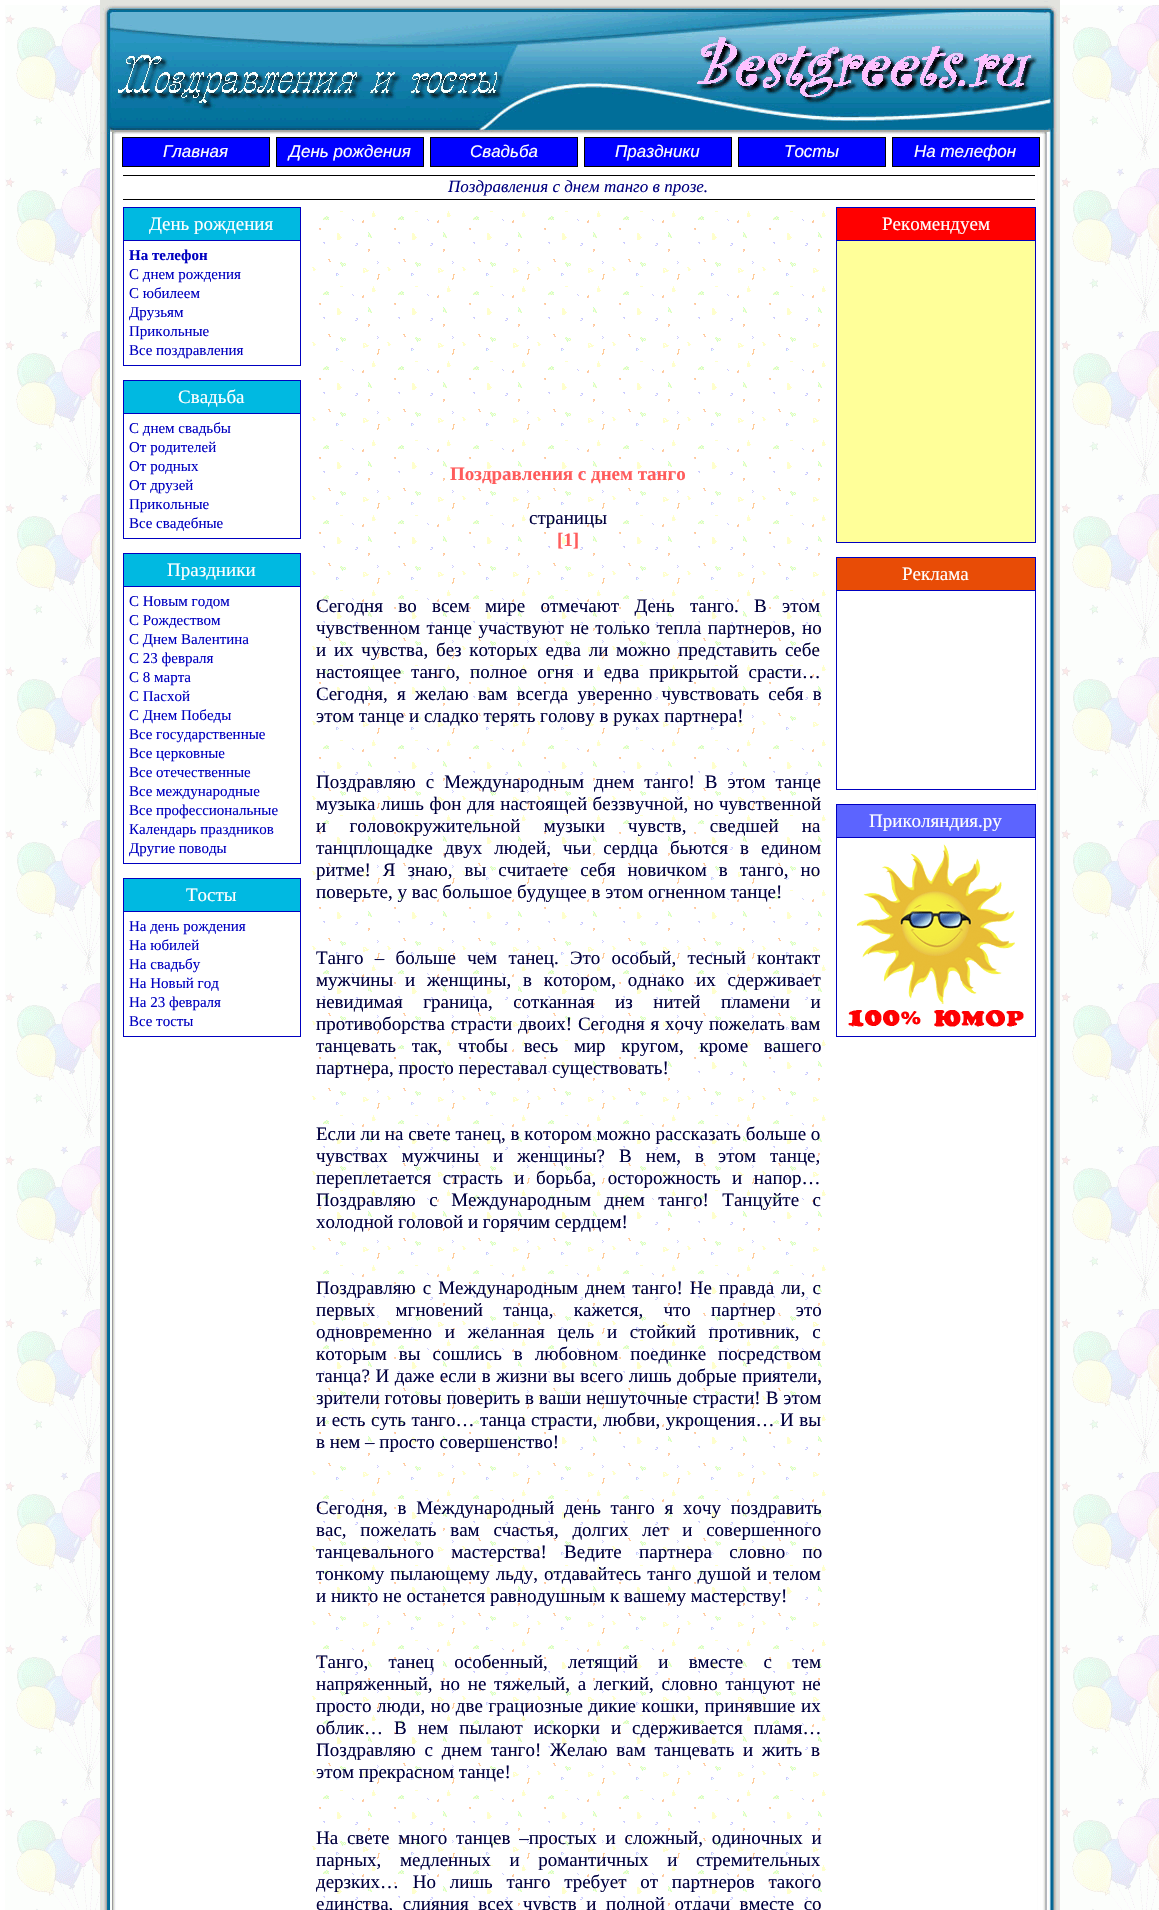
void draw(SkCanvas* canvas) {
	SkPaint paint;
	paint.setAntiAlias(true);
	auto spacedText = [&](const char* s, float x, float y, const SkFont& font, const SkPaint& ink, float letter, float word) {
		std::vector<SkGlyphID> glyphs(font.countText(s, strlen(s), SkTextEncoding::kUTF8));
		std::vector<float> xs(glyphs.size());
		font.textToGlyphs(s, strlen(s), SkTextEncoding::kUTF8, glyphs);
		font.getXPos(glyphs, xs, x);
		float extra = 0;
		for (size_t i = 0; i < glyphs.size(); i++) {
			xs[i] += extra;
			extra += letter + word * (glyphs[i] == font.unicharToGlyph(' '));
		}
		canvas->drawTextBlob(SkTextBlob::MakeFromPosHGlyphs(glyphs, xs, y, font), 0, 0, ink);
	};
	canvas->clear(0xffffffff);
	canvas->drawImageRect(SkImages::DeferredFromEncodedData(SkData::MakeFromFileName("img1.png")), SkRect::MakeXYWH(5, 5, 1154, 1905), SkSamplingOptions());
	canvas->drawImageRect(SkImages::DeferredFromEncodedData(SkData::MakeFromFileName("img2.png")), SkRect::MakeXYWH(100, 0, 960, 134), SkSamplingOptions());
	canvas->drawImageRect(SkImages::DeferredFromEncodedData(SkData::MakeFromFileName("img3.png")), SkRect::MakeXYWH(100, 134, 960, 1776), SkSamplingOptions());
	paint.setColor(0xff0000ff);
	canvas->drawRect(SkRect::MakeXYWH(122.5, 137.5, 147, 29), paint);
	paint.setStroke(true);
	paint.setStrokeWidth(1);
	paint.setColor(0xff000000);
	canvas->drawRect(SkRect::MakeXYWH(122.5, 137.5, 147, 29), paint);
	SkFont f1(fontMgr->matchFamilyStyle("Liberation Sans", SkFontStyle::Italic()), 17);
	f1.setSubpixel(true);
	paint.setStroke(false);
	paint.setColor(0xffffffff);
	canvas->drawString("Главная", 163, 157, f1, paint);
	paint.setColor(0xff0000ff);
	canvas->drawRect(SkRect::MakeXYWH(276.5, 137.5, 147, 29), paint);
	paint.setStroke(true);
	paint.setColor(0xff000000);
	canvas->drawRect(SkRect::MakeXYWH(276.5, 137.5, 147, 29), paint);
	paint.setStroke(false);
	paint.setColor(0xffffffff);
	canvas->drawString("День рождения", 289, 157, f1, paint);
	paint.setColor(0xff0000ff);
	canvas->drawRect(SkRect::MakeXYWH(430.5, 137.5, 147, 29), paint);
	paint.setStroke(true);
	paint.setColor(0xff000000);
	canvas->drawRect(SkRect::MakeXYWH(430.5, 137.5, 147, 29), paint);
	paint.setStroke(false);
	paint.setColor(0xffffffff);
	canvas->drawString("Свадьба", 470, 157, f1, paint);
	paint.setColor(0xff0000ff);
	canvas->drawRect(SkRect::MakeXYWH(584.5, 137.5, 147, 29), paint);
	paint.setStroke(true);
	paint.setColor(0xff000000);
	canvas->drawRect(SkRect::MakeXYWH(584.5, 137.5, 147, 29), paint);
	paint.setStroke(false);
	paint.setColor(0xffffffff);
	canvas->drawString("Праздники", 615, 157, f1, paint);
	paint.setColor(0xff0000ff);
	canvas->drawRect(SkRect::MakeXYWH(738.5, 137.5, 147, 29), paint);
	paint.setStroke(true);
	paint.setColor(0xff000000);
	canvas->drawRect(SkRect::MakeXYWH(738.5, 137.5, 147, 29), paint);
	paint.setStroke(false);
	paint.setColor(0xffffffff);
	canvas->drawString("Тосты", 784, 157, f1, paint);
	paint.setColor(0xff0000ff);
	canvas->drawRect(SkRect::MakeXYWH(892.5, 137.5, 147, 29), paint);
	paint.setStroke(true);
	paint.setColor(0xff000000);
	canvas->drawRect(SkRect::MakeXYWH(892.5, 137.5, 147, 29), paint);
	paint.setStroke(false);
	paint.setColor(0xffffffff);
	canvas->drawString("На телефон", 914, 157, f1, paint);
	paint.setColor(0xff000000);
	canvas->drawRect(SkRect::MakeXYWH(123, 175, 912, 1), paint);
	canvas->drawRect(SkRect::MakeXYWH(123, 199, 912, 1), paint);
	SkFont f2(fontMgr->matchFamilyStyle("Liberation Serif", SkFontStyle::Italic()), 17);
	f2.setSubpixel(true);
	paint.setColor(0xff000080);
	canvas->drawString("Поздравления с днем танго в прозе.", 448, 192, f2, paint);
	paint.setColor(0xff00b9e1);
	canvas->drawRect(SkRect::MakeXYWH(124, 208, 176, 32), paint);
	paint.setColor(0xff0000c0);
	canvas->drawRect(SkRect::MakeXYWH(123, 207, 178, 1), paint);
	canvas->drawRect(SkRect::MakeXYWH(300, 207, 1, 33), paint);
	canvas->drawRect(SkRect::MakeXYWH(123, 207, 1, 33), paint);
	SkFont f3(fontMgr->matchFamilyStyle("Liberation Serif", SkFontStyle::Normal()), 19);
	f3.setSubpixel(true);
	paint.setColor(0xffffffff);
	canvas->drawString("День рождения", 149, 230, f3, paint);
	paint.setStroke(true);
	paint.setColor(0xff0000c0);
	canvas->drawRect(SkRect::MakeXYWH(123.5, 240.5, 177, 125), paint);
	SkFont f4(fontMgr->matchFamilyStyle("Liberation Serif", SkFontStyle::Bold()), 15);
	f4.setSubpixel(true);
	paint.setStroke(false);
	canvas->drawString("На телефон", 129, 260, f4, paint);
	SkFont f5(fontMgr->matchFamilyStyle("Liberation Serif", SkFontStyle::Normal()), 15);
	f5.setSubpixel(true);
	canvas->drawString("С днем рождения", 129, 279, f5, paint);
	canvas->drawString("С юбилеем", 129, 298, f5, paint);
	canvas->drawString("Друзьям", 129, 317, f5, paint);
	canvas->drawString("Прикольные", 129, 336, f5, paint);
	canvas->drawString("Все поздравления", 129, 355, f5, paint);
	canvas->drawImageRect(SkImages::DeferredFromEncodedData(SkData::MakeFromFileName("img4.png")), SkRect::MakeXYWH(312, 211, 514, 219), SkSamplingOptions());
	paint.setColor(0xffff0000);
	canvas->drawRect(SkRect::MakeXYWH(837, 208, 198, 32), paint);
	paint.setColor(0xff0000c0);
	canvas->drawRect(SkRect::MakeXYWH(836, 207, 200, 1), paint);
	canvas->drawRect(SkRect::MakeXYWH(1035, 207, 1, 33), paint);
	canvas->drawRect(SkRect::MakeXYWH(836, 207, 1, 33), paint);
	paint.setColor(0xffffffff);
	canvas->drawString("Рекомендуем", 882, 230, f3, paint);
	paint.setColor(0xffffff99);
	canvas->drawRect(SkRect::MakeXYWH(836.5, 240.5, 199, 302), paint);
	paint.setStroke(true);
	paint.setColor(0xff0000c0);
	canvas->drawRect(SkRect::MakeXYWH(836.5, 240.5, 199, 302), paint);
	paint.setStroke(false);
	paint.setColor(0xff00b9e1);
	canvas->drawRect(SkRect::MakeXYWH(124, 381, 176, 32), paint);
	paint.setColor(0xff0000c0);
	canvas->drawRect(SkRect::MakeXYWH(123, 380, 178, 1), paint);
	canvas->drawRect(SkRect::MakeXYWH(300, 380, 1, 33), paint);
	canvas->drawRect(SkRect::MakeXYWH(123, 380, 1, 33), paint);
	paint.setColor(0xffffffff);
	canvas->drawString("Свадьба", 178, 403, f3, paint);
	paint.setStroke(true);
	paint.setColor(0xff0000c0);
	canvas->drawRect(SkRect::MakeXYWH(123.5, 413.5, 177, 125), paint);
	paint.setStroke(false);
	canvas->drawString("С днем свадьбы", 129, 433, f5, paint);
	canvas->drawString("От родителей", 129, 452, f5, paint);
	canvas->drawString("От родных", 129, 471, f5, paint);
	canvas->drawString("От друзей", 129, 490, f5, paint);
	canvas->drawString("Прикольные", 129, 509, f5, paint);
	canvas->drawString("Все свадебные", 129, 528, f5, paint);
	canvas->drawImageRect(SkImages::DeferredFromEncodedData(SkData::MakeFromFileName("img5.png")), SkRect::MakeXYWH(312, 440, 514, 1466), SkSamplingOptions());
	SkFont f6(fontMgr->matchFamilyStyle("Liberation Serif", SkFontStyle::Bold()), 19);
	f6.setSubpixel(true);
	paint.setColor(0xffff5c5c);
	canvas->drawString("Поздравления с днем танго", 450, 480, f6, paint);
	paint.setColor(0xff000040);
	canvas->drawString("страницы", 529, 524, f3, paint);
	paint.setColor(0xffff5c5c);
	canvas->drawString("[1]", 557, 546, f6, paint);
	paint.setColor(0xff000040);
	spacedText("Сегодня во всем мире отмечают День танго. В этом", 316, 612, f3, paint, 0, 10.5);
	spacedText("чувственном танце участвуют не только тепла партнеров, но", 316, 634, f3, paint, 0, 1.75);
	spacedText("и их чувства, без которых едва ли можно представить себе", 316, 656, f3, paint, 0, 3);
	spacedText("настоящее танго, полное огня и едва прикрытой срасти…", 316, 678, f3, paint, 0, 5.25);
	spacedText("Сегодня, я желаю вам всегда уверенно чувствовать себя в", 316, 700, f3, paint, 0, 4.5);
	canvas->drawString("этом танце и сладко терять голову в руках партнера!", 316, 722, f3, paint);
	spacedText("Поздравляю с Международным днем танго! В этом танце", 316, 788, f3, paint, 0, 5.25);
	spacedText("музыка лишь фон для настоящей беззвучной, но чувственной", 316, 810, f3, paint, 0, 0.75);
	spacedText("и головокружительной музыки чувств, сведшей на", 316, 832, f3, paint, 0, 18.5);
	spacedText("танцплощадке двух людей, чьи сердца бьются в едином", 316, 854, f3, paint, 0, 7.25);
	spacedText("ритме! Я знаю, вы считаете себя новичком в танго, но", 316, 876, f3, paint, 0, 7.25);
	canvas->drawString("поверьте, у вас большое будущее в этом огненном танце!", 316, 898, f3, paint);
	spacedText("Танго – больше чем танец. Это особый, тесный контакт", 316, 964, f3, paint, 0, 6.5);
	spacedText("мужчины и женщины, в котором, однако их сдерживает", 316, 986, f3, paint, 0, 7);
	spacedText("невидимая граница, сотканная из нитей пламени и", 316, 1008, f3, paint, 0, 15.75);
	spacedText("противоборства страсти двоих! Сегодня я хочу пожелать вам", 316, 1030, f3, paint, 0, 1);
	spacedText("танцевать так, чтобы весь мир кругом, кроме вашего", 316, 1052, f3, paint, 0, 11);
	canvas->drawString("партнера, просто переставал существовать!", 316, 1074, f3, paint);
	canvas->drawString("Если ли на свете танец, в котором можно рассказать больше о", 316, 1140, f3, paint);
	spacedText("чувствах мужчины и женщины? В нем, в этом танце,", 316, 1162, f3, paint, 0, 9.25);
	spacedText("переплетается страсть и борьба, осторожность и напор…", 316, 1184, f3, paint, 0, 6.75);
	spacedText("Поздравляю с Международным днем танго! Танцуйте с", 316, 1206, f3, paint, 0, 8.75);
	canvas->drawString("холодной головой и горячим сердцем!", 316, 1228, f3, paint);
	spacedText("Поздравляю с Международным днем танго! Не правда ли, с", 316, 1294, f3, paint, 0, 2.25);
	spacedText("первых мгновений танца, кажется, что партнер это", 316, 1316, f3, paint, 0, 15.5);
	spacedText("одновременно и желанная цель и стойкий противник, с", 316, 1338, f3, paint, 0, 8);
	spacedText("которым вы сошлись в любовном поединке посредством", 316, 1360, f3, paint, 0, 7.25);
	spacedText("танца? И даже если в жизни вы всего лишь добрые приятели,", 316, 1382, f3, paint, 0, 0.75);
	spacedText("зрители готовы поверить в ваши нешуточные страсти! В этом", 316, 1404, f3, paint, 0, 0.25);
	spacedText("и есть суть танго… танца страсти, любви, укрощения… И вы", 316, 1426, f3, paint, 0, 0.75);
	canvas->drawString("в нем – просто совершенство!", 316, 1448, f3, paint);
	spacedText("Сегодня, в Международный день танго я хочу поздравить", 316, 1514, f3, paint, 0, 5);
	spacedText("вас, пожелать вам счастья, долгих лет и совершенного", 316, 1536, f3, paint, 0, 9);
	spacedText("танцевального мастерства! Ведите партнера словно по", 316, 1558, f3, paint, 0, 12.5);
	spacedText("тонкому пылающему льду, отдавайтесь танго душой и телом", 316, 1580, f3, paint, 0, 1.25);
	canvas->drawString("и никто не останется равнодушным к вашему мастерству!", 316, 1602, f3, paint);
	spacedText("Танго, танец особенный, летящий и вместе с тем", 316, 1668, f3, paint, 0, 15.5);
	spacedText("напряженный, но не тяжелый, а легкий, словно танцуют не", 316, 1690, f3, paint, 0, 3);
	spacedText("просто люди, но две грациозные дикие кошки, принявшие их", 316, 1712, f3, paint, 0, 0.75);
	spacedText("облик… В нем пылают искорки и сдерживается пламя…", 316, 1734, f3, paint, 0, 6.25);
	spacedText("Поздравляю с днем танго! Желаю вам танцевать и жить в", 316, 1756, f3, paint, 0, 4);
	canvas->drawString("этом прекрасном танце!", 316, 1778, f3, paint);
	spacedText("На свете много танцев –простых и сложный, одиночных и", 316, 1844, f3, paint, 0, 4);
	spacedText("парных, медленных и романтичных и стремительных", 316, 1866, f3, paint, 0, 14);
	spacedText("дерзких… Но лишь танго требует от партнеров такого", 316, 1888, f3, paint, 0, 9);
	spacedText("единства, слияния всех чувств и полной отдачи вместе со", 316, 1910, f3, paint, 0, 4.75);
	paint.setColor(0xff00b9e1);
	canvas->drawRect(SkRect::MakeXYWH(124, 554, 176, 32), paint);
	paint.setColor(0xff0000c0);
	canvas->drawRect(SkRect::MakeXYWH(123, 553, 178, 1), paint);
	canvas->drawRect(SkRect::MakeXYWH(300, 553, 1, 33), paint);
	canvas->drawRect(SkRect::MakeXYWH(123, 553, 1, 33), paint);
	paint.setColor(0xffffffff);
	canvas->drawString("Праздники", 167, 576, f3, paint);
	paint.setStroke(true);
	paint.setColor(0xff0000c0);
	canvas->drawRect(SkRect::MakeXYWH(123.5, 586.5, 177, 277), paint);
	paint.setStroke(false);
	canvas->drawString("С Новым годом", 129, 606, f5, paint);
	canvas->drawString("С Рождеством", 129, 625, f5, paint);
	canvas->drawString("С Днем Валентина", 129, 644, f5, paint);
	canvas->drawString("С 23 февраля", 129, 663, f5, paint);
	canvas->drawString("С 8 марта", 129, 682, f5, paint);
	canvas->drawString("С Пасхой", 129, 701, f5, paint);
	canvas->drawString("С Днем Победы", 129, 720, f5, paint);
	canvas->drawString("Все государственные", 129, 739, f5, paint);
	canvas->drawString("Все церковные", 129, 758, f5, paint);
	canvas->drawString("Все отечественные", 129, 777, f5, paint);
	canvas->drawString("Все международные", 129, 796, f5, paint);
	canvas->drawString("Все профессиональные", 129, 815, f5, paint);
	canvas->drawString("Календарь праздников", 129, 834, f5, paint);
	canvas->drawString("Другие поводы", 129, 853, f5, paint);
	paint.setColor(0xffe84c06);
	canvas->drawRect(SkRect::MakeXYWH(837, 558, 198, 32), paint);
	paint.setColor(0xff0000c0);
	canvas->drawRect(SkRect::MakeXYWH(836, 557, 200, 1), paint);
	canvas->drawRect(SkRect::MakeXYWH(1035, 557, 1, 33), paint);
	canvas->drawRect(SkRect::MakeXYWH(836, 557, 1, 33), paint);
	paint.setColor(0xffffffff);
	canvas->drawString("Реклама", 902, 580, f3, paint);
	paint.setStroke(true);
	paint.setColor(0xff0000c0);
	canvas->drawRect(SkRect::MakeXYWH(836.5, 590.5, 199, 199), paint);
	paint.setStroke(false);
	paint.setColor(0xff5c64ff);
	canvas->drawRect(SkRect::MakeXYWH(837, 805, 198, 32), paint);
	paint.setColor(0xff0000c0);
	canvas->drawRect(SkRect::MakeXYWH(836, 804, 200, 1), paint);
	canvas->drawRect(SkRect::MakeXYWH(1035, 804, 1, 33), paint);
	canvas->drawRect(SkRect::MakeXYWH(836, 804, 1, 33), paint);
	paint.setColor(0xffffffff);
	canvas->drawString("Приколяндия.ру", 869, 827, f3, paint);
	paint.setStroke(true);
	paint.setColor(0xff0000c0);
	canvas->drawRect(SkRect::MakeXYWH(836.5, 837.5, 199, 199), paint);
	canvas->drawImageRect(SkImages::DeferredFromEncodedData(SkData::MakeFromFileName("img6.png")), SkRect::MakeXYWH(848, 844, 176, 183), SkSamplingOptions());
	paint.setStroke(false);
	paint.setColor(0xff00b9e1);
	canvas->drawRect(SkRect::MakeXYWH(124, 879, 176, 32), paint);
	paint.setColor(0xff0000c0);
	canvas->drawRect(SkRect::MakeXYWH(123, 878, 178, 1), paint);
	canvas->drawRect(SkRect::MakeXYWH(300, 878, 1, 33), paint);
	canvas->drawRect(SkRect::MakeXYWH(123, 878, 1, 33), paint);
	paint.setColor(0xffffffff);
	canvas->drawString("Тосты", 186, 901, f3, paint);
	paint.setStroke(true);
	paint.setColor(0xff0000c0);
	canvas->drawRect(SkRect::MakeXYWH(123.5, 911.5, 177, 125), paint);
	paint.setStroke(false);
	canvas->drawString("На день рождения", 129, 931, f5, paint);
	canvas->drawString("На юбилей", 129, 950, f5, paint);
	canvas->drawString("На свадьбу", 129, 969, f5, paint);
	canvas->drawString("На Новый год", 129, 988, f5, paint);
	canvas->drawString("На 23 февраля", 129, 1007, f5, paint);
	canvas->drawString("Все тосты", 129, 1026, f5, paint);
}
